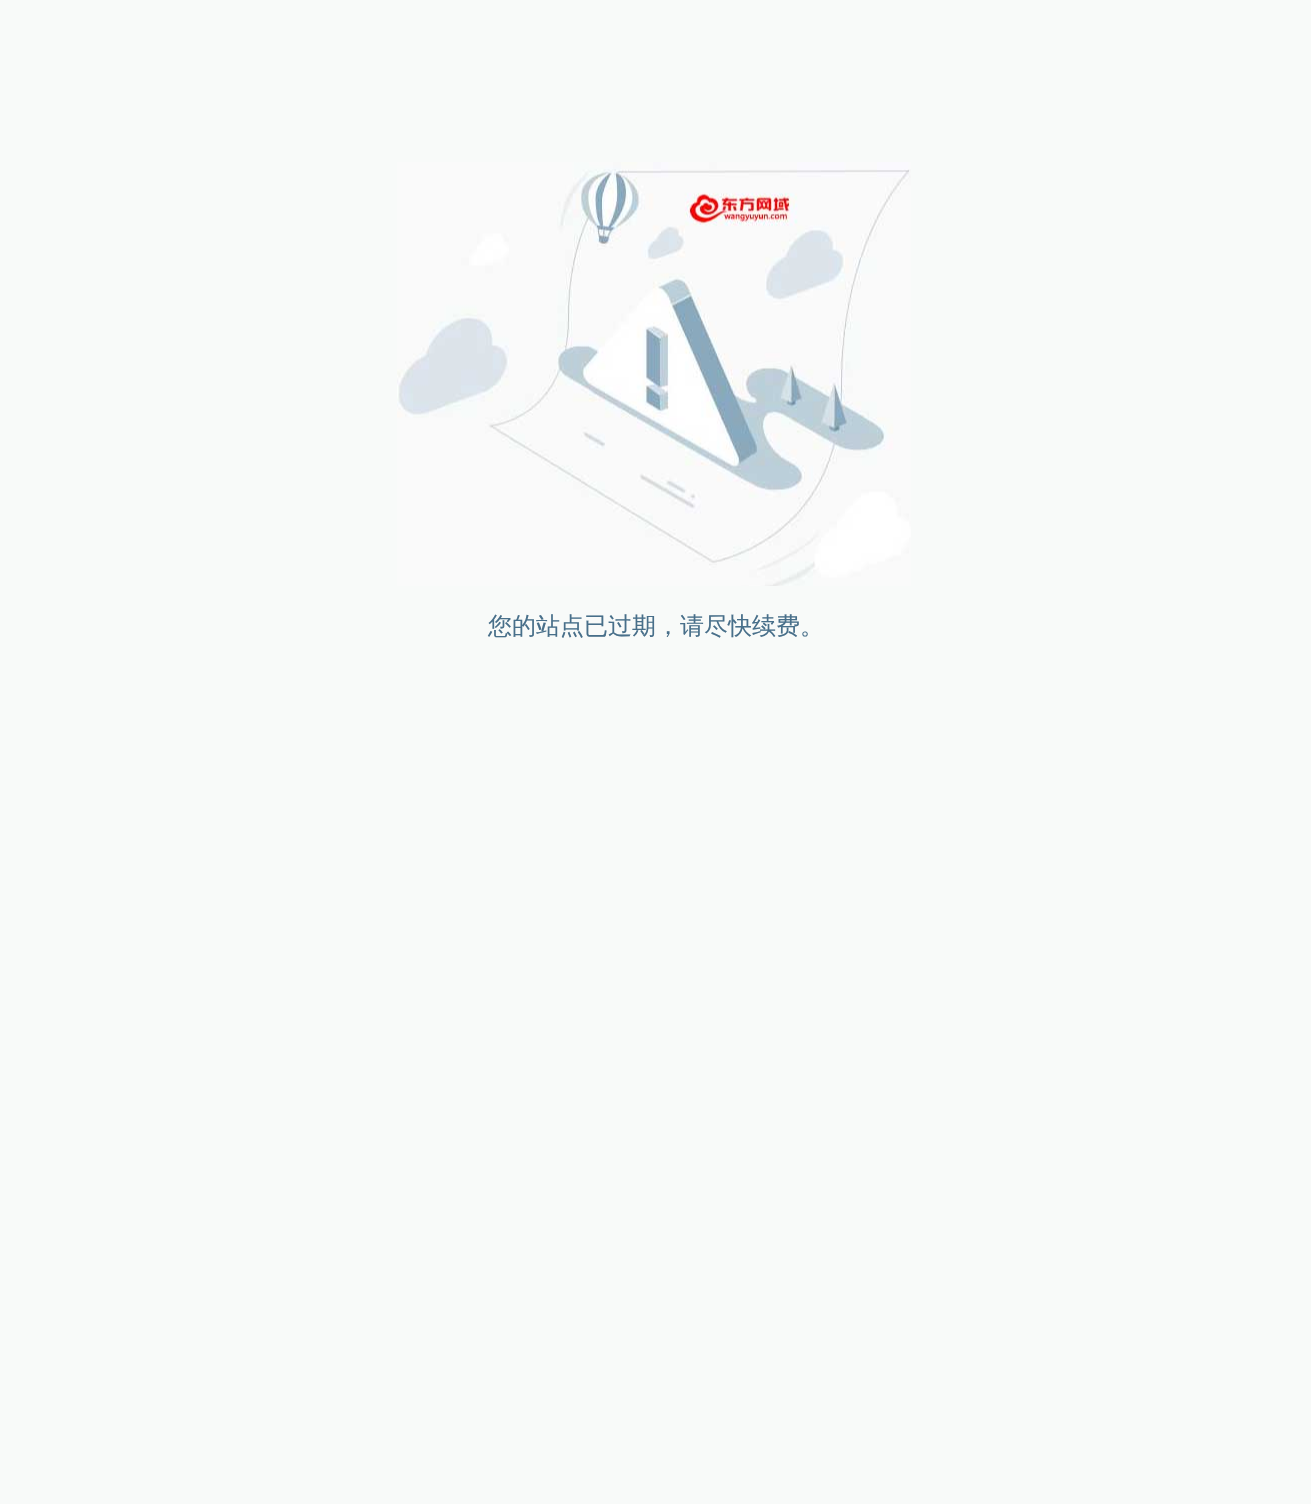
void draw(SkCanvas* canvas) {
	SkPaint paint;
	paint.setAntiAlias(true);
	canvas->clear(0xfff8faf9);
	canvas->drawImageRect(SkImages::DeferredFromEncodedData(SkData::MakeFromFileName("img1.png")), SkRect::MakeXYWH(397, 162, 514, 424), SkSamplingOptions());
	SkFont f1(fontMgr->matchFamilyStyle("WenQuanYi Zen Hei", SkFontStyle(500, SkFontStyle::kNormal_Width, SkFontStyle::kUpright_Slant)), 24);
	f1.setSubpixel(true);
	paint.setColor(0xff486f8a);
	canvas->drawString("您的站点已过期，请尽快续费。", 488, 634, f1, paint);
}
